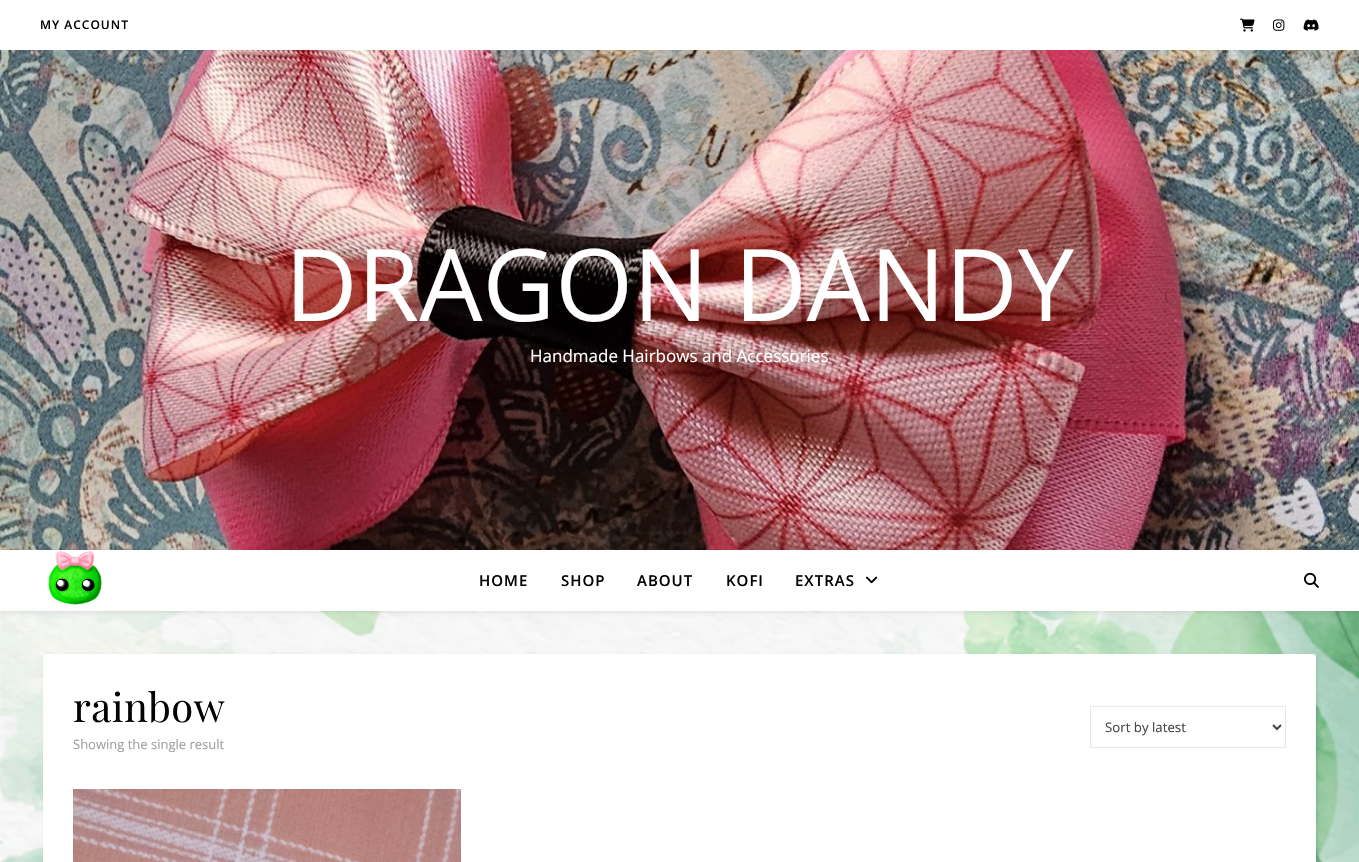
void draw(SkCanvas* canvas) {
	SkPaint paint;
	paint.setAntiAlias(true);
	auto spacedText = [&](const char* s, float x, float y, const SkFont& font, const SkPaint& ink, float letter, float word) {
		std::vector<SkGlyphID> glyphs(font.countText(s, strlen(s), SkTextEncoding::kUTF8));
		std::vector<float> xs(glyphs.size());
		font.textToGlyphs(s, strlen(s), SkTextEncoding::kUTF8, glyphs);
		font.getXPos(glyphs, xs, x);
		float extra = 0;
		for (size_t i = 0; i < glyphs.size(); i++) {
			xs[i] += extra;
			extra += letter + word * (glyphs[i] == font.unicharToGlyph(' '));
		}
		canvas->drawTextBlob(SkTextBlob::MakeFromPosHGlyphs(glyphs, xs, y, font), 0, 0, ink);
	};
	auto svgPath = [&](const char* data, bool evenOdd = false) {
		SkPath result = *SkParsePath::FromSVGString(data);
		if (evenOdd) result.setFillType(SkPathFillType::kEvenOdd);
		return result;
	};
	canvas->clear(0xffffffff);
	canvas->drawImageRect(SkImages::DeferredFromEncodedData(SkData::MakeFromFileName("img1.png")), SkRect::MakeXYWH(0, 611, 1359, 251), SkSamplingOptions());
	SkFont f1(fontMgr->matchFamilyStyle("Open Sans", SkFontStyle(600, SkFontStyle::kNormal_Width, SkFontStyle::kUpright_Slant)), 12);
	f1.setSubpixel(true);
	paint.setColor(0xff030303);
	spacedText("MY ACCOUNT", 40, 29, f1, paint, 1, 0);
	canvas->drawImageRect(SkImages::DeferredFromEncodedData(SkData::MakeFromFileName("img2.png")), SkRect::MakeXYWH(1240, 18, 15, 14), SkSamplingOptions());
	canvas->drawImageRect(SkImages::DeferredFromEncodedData(SkData::MakeFromFileName("img3.png")), SkRect::MakeXYWH(1273, 19, 12, 12), SkSamplingOptions());
	canvas->drawImageRect(SkImages::DeferredFromEncodedData(SkData::MakeFromFileName("img4.png")), SkRect::MakeXYWH(1303, 19, 16, 12), SkSamplingOptions());
	canvas->drawImageRect(SkImages::DeferredFromEncodedData(SkData::MakeFromFileName("img5.png")), SkRect::MakeXYWH(0, 50, 1359, 500), SkSamplingOptions());
	SkFont f2(fontMgr->matchFamilyStyle("Open Sans", SkFontStyle::Normal()), 100);
	f2.setSubpixel(true);
	paint.setColor(0xffffffff);
	canvas->drawString("DRAGON DANDY", 285, 321, f2, paint);
	SkFont f3(fontMgr->matchFamilyStyle("Open Sans", SkFontStyle::Normal()), 17);
	f3.setSubpixel(true);
	canvas->drawString("Handmade Hairbows and Accessories", 530, 362, f3, paint);
	paint.setColor(0x1a000000);
	paint.setMaskFilter(SkMaskFilter::MakeBlur(kNormal_SkBlurStyle, 2.5));
	canvas->drawRect(SkRect::MakeXYWH(0, 551, 1359, 61), paint);
	paint.setMaskFilter(nullptr);
	paint.setColor(0xffffffff);
	canvas->drawRect(SkRect::MakeXYWH(0, 550, 1359, 61), paint);
	canvas->drawImageRect(SkImages::DeferredFromEncodedData(SkData::MakeFromFileName("img6.png")), SkRect::MakeXYWH(48, 551, 54, 54), SkSamplingOptions());
	SkFont f4(fontMgr->matchFamilyStyle("Open Sans", SkFontStyle(600, SkFontStyle::kNormal_Width, SkFontStyle::kUpright_Slant)), 15);
	f4.setSubpixel(true);
	paint.setColor(0xff030303);
	spacedText("HOME", 479, 586, f4, paint, 1, 0);
	spacedText("SHOP", 561, 586, f4, paint, 1, 0);
	spacedText("ABOUT", 637, 586, f4, paint, 1, 0);
	spacedText("KOFI", 726, 586, f4, paint, 1, 0);
	spacedText("EXTRAS", 795, 586, f4, paint, 1, 0);
	canvas->drawImageRect(SkImages::DeferredFromEncodedData(SkData::MakeFromFileName("img7.png")), SkRect::MakeXYWH(866, 576, 12, 8), SkSamplingOptions());
	canvas->drawImageRect(SkImages::DeferredFromEncodedData(SkData::MakeFromFileName("img8.png")), SkRect::MakeXYWH(1304, 572, 15, 16), SkSamplingOptions());
	paint.setColor(0x1a000000);
	paint.setMaskFilter(SkMaskFilter::MakeBlur(kNormal_SkBlurStyle, 1.5));
	canvas->drawRoundRect(SkRect::MakeXYWH(44, 655, 1273, 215), 3, 3, paint);
	paint.setMaskFilter(nullptr);
	paint.setColor(0xffffffff);
	canvas->drawRoundRect(SkRect::MakeXYWH(43, 654, 1273, 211), 3, 3, paint);
	SkFont f5(fontMgr->matchFamilyStyle("Playfair Display", SkFontStyle::Normal()), 40);
	f5.setSubpixel(true);
	paint.setColor(0xff030303);
	spacedText("rainbow", 73, 722, f5, paint, 0.5, 0);
	paint.setStroke(true);
	paint.setStrokeWidth(1);
	paint.setColor(0xffe8e8e8);
	canvas->drawRect(SkRect::MakeXYWH(1090.5, 706.5, 195, 41), paint);
	paint.setStrokeWidth(2);
	paint.setColor(0xff464646);
	canvas->drawPath(svgPath("M1273 725L1277 729L1281 725"), paint);
	SkFont f6(fontMgr->matchFamilyStyle("Open Sans", SkFontStyle::Normal()), 13.25);
	f6.setSubpixel(true);
	paint.setStroke(false);
	canvas->drawString("Sort by latest", 1105, 732, f6, paint);
	SkFont f7(fontMgr->matchFamilyStyle("Open Sans", SkFontStyle::Normal()), 13);
	f7.setSubpixel(true);
	paint.setColor(0xffa1a1a1);
	canvas->drawString("Showing the single result", 73, 749, f7, paint);
	canvas->drawImageRect(SkImages::DeferredFromEncodedData(SkData::MakeFromFileName("img9.png")), SkRect::MakeXYWH(73, 789, 388, 73), SkSamplingOptions());
}
